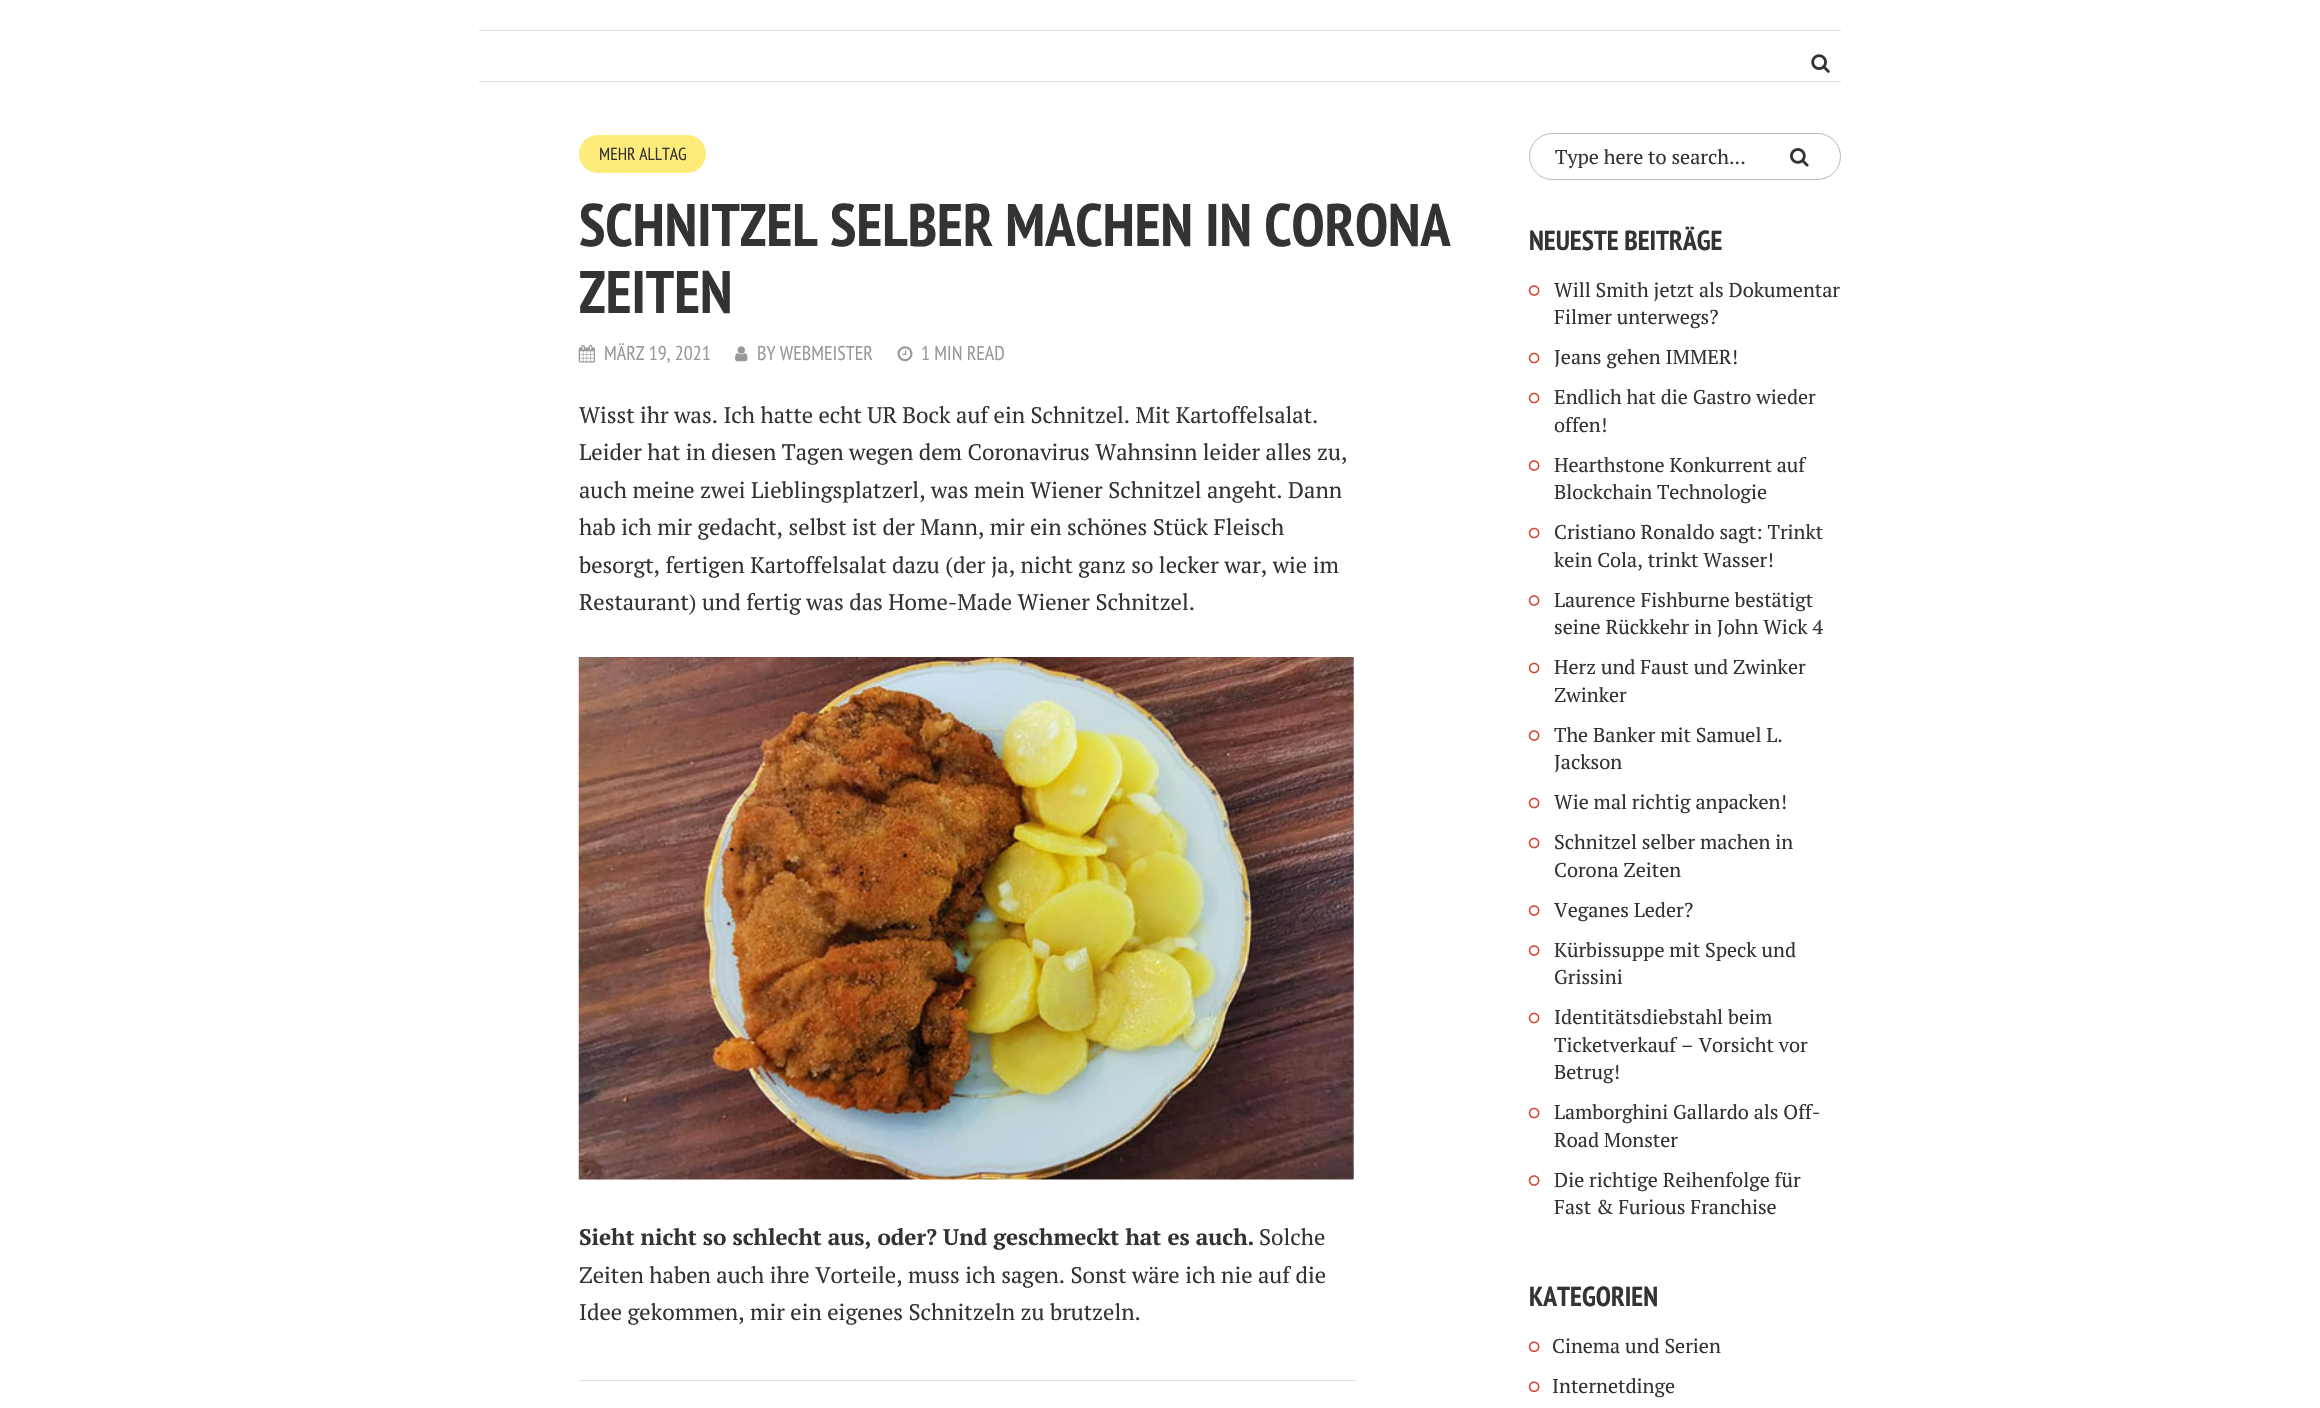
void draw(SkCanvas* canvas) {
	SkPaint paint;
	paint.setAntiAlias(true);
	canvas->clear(0xffffffff);
	paint.setColor(0xffe0e0e0);
	canvas->drawRect(SkRect::MakeXYWH(479, 30, 1362, 1), paint);
	canvas->drawRect(SkRect::MakeXYWH(479, 81, 1362, 1), paint);
	canvas->drawImageRect(SkImages::DeferredFromEncodedData(SkData::MakeFromFileName("img1.png")), SkRect::MakeXYWH(1811, 54, 19, 19), SkSamplingOptions());
	paint.setColor(0xffffeb79);
	canvas->drawRoundRect(SkRect::MakeXYWH(579, 135, 127, 38), 19, 19, paint);
	SkFont f1(fontMgr->matchFamilyStyle("PT Sans Narrow", SkFontStyle::Normal()), 17.5);
	f1.setSubpixel(true);
	paint.setColor(0xff333333);
	canvas->drawString("MEHR ALLTAG", 599, 160, f1, paint);
	SkFont f2(fontMgr->matchFamilyStyle("PT Sans Narrow", SkFontStyle::Bold()), 60);
	f2.setSubpixel(true);
	canvas->drawString("SCHNITZEL SELBER MACHEN IN CORONA", 579, 246, f2, paint);
	canvas->drawString("ZEITEN", 579, 313, f2, paint);
	canvas->drawImageRect(SkImages::DeferredFromEncodedData(SkData::MakeFromFileName("img2.png")), SkRect::MakeXYWH(578, 345, 17, 18), SkSamplingOptions());
	SkFont f3(fontMgr->matchFamilyStyle("PT Sans Narrow", SkFontStyle::Normal()), 20);
	f3.setSubpixel(true);
	paint.setColor(0xff999999);
	canvas->drawString("MÄRZ 19, 2021", 604, 360, f3, paint);
	canvas->drawImageRect(SkImages::DeferredFromEncodedData(SkData::MakeFromFileName("img3.png")), SkRect::MakeXYWH(735, 346, 13, 16), SkSamplingOptions());
	canvas->drawString("BY WEBMEISTER", 757, 360, f3, paint);
	canvas->drawImageRect(SkImages::DeferredFromEncodedData(SkData::MakeFromFileName("img4.png")), SkRect::MakeXYWH(897, 346, 16, 16), SkSamplingOptions());
	canvas->drawString("1 MIN READ", 921, 360, f3, paint);
	SkFont f4(fontMgr->matchFamilyStyle("PT Serif", SkFontStyle::Normal()), 22.5);
	f4.setSubpixel(true);
	paint.setColor(0xff333333);
	canvas->drawString("Wisst ihr was. Ich hatte echt UR Bock auf ein Schnitzel. Mit Kartoffelsalat.", 579, 423, f4, paint);
	canvas->drawString("Leider hat in diesen Tagen wegen dem Coronavirus Wahnsinn leider alles zu,", 579, 460, f4, paint);
	canvas->drawString("auch meine zwei Lieblingsplatzerl, was mein Wiener Schnitzel angeht. Dann", 579, 498, f4, paint);
	canvas->drawString("hab ich mir gedacht, selbst ist der Mann, mir ein schönes Stück Fleisch", 579, 535, f4, paint);
	canvas->drawString("besorgt, fertigen Kartoffelsalat dazu (der ja, nicht ganz so lecker war, wie im", 579, 573, f4, paint);
	canvas->drawString("Restaurant) und fertig was das Home-Made Wiener Schnitzel.", 579, 610, f4, paint);
	canvas->drawImageRect(SkImages::DeferredFromEncodedData(SkData::MakeFromFileName("img5.png")), SkRect::MakeXYWH(578, 657, 776, 523), SkSamplingOptions());
	SkFont f5(fontMgr->matchFamilyStyle("PT Serif", SkFontStyle::Bold()), 22.5);
	f5.setSubpixel(true);
	canvas->drawString("Sieht nicht so schlecht aus, oder? Und geschmeckt hat es auch.", 579, 1245, f5, paint);
	canvas->drawString("Solche", 1259, 1245, f4, paint);
	canvas->drawString("Zeiten haben auch ihre Vorteile, muss ich sagen. Sonst wäre ich nie auf die", 579, 1283, f4, paint);
	canvas->drawString("Idee gekommen, mir ein eigenes Schnitzeln zu brutzeln.", 579, 1320, f4, paint);
	paint.setColor(0xffe2e2e2);
	canvas->drawRect(SkRect::MakeXYWH(579, 1380, 777, 1), paint);
	paint.setStroke(true);
	paint.setStrokeWidth(1);
	paint.setColor(0xffb8b8b8);
	canvas->drawRoundRect(SkRect::MakeXYWH(1529.5, 133.5, 311, 46), 23, 23, paint);
	SkFont f6(fontMgr->matchFamilyStyle("PT Serif", SkFontStyle::Normal()), 20);
	f6.setSubpixel(true);
	paint.setStroke(false);
	paint.setColor(0xff333333);
	canvas->drawString("Type here to search...", 1555, 164, f6, paint);
	canvas->drawImageRect(SkImages::DeferredFromEncodedData(SkData::MakeFromFileName("img6.png")), SkRect::MakeXYWH(1790, 148, 19, 19), SkSamplingOptions());
	SkFont f7(fontMgr->matchFamilyStyle("PT Sans Narrow", SkFontStyle::Bold()), 27.5);
	f7.setSubpixel(true);
	canvas->drawString("NEUESTE BEITRÄGE", 1529, 250, f7, paint);
	canvas->drawImageRect(SkImages::DeferredFromEncodedData(SkData::MakeFromFileName("img7.png")), SkRect::MakeXYWH(1528, 285, 12, 11), SkSamplingOptions());
	canvas->drawString("Will Smith jetzt als Dokumentar", 1554, 297, f6, paint);
	canvas->drawString("Filmer unterwegs?", 1554, 324, f6, paint);
	canvas->drawImageRect(SkImages::DeferredFromEncodedData(SkData::MakeFromFileName("img8.png")), SkRect::MakeXYWH(1528, 352, 12, 12), SkSamplingOptions());
	canvas->drawString("Jeans gehen IMMER!", 1554, 364, f6, paint);
	canvas->drawImageRect(SkImages::DeferredFromEncodedData(SkData::MakeFromFileName("img8.png")), SkRect::MakeXYWH(1528, 392, 12, 12), SkSamplingOptions());
	canvas->drawString("Endlich hat die Gastro wieder", 1554, 404, f6, paint);
	canvas->drawString("offen!", 1554, 432, f6, paint);
	canvas->drawImageRect(SkImages::DeferredFromEncodedData(SkData::MakeFromFileName("img7.png")), SkRect::MakeXYWH(1528, 460, 12, 11), SkSamplingOptions());
	canvas->drawString("Hearthstone Konkurrent auf", 1554, 472, f6, paint);
	canvas->drawString("Blockchain Technologie", 1554, 499, f6, paint);
	canvas->drawImageRect(SkImages::DeferredFromEncodedData(SkData::MakeFromFileName("img8.png")), SkRect::MakeXYWH(1528, 527, 12, 12), SkSamplingOptions());
	canvas->drawString("Cristiano Ronaldo sagt: Trinkt", 1554, 539, f6, paint);
	canvas->drawString("kein Cola, trinkt Wasser!", 1554, 567, f6, paint);
	canvas->drawImageRect(SkImages::DeferredFromEncodedData(SkData::MakeFromFileName("img7.png")), SkRect::MakeXYWH(1528, 595, 12, 11), SkSamplingOptions());
	canvas->drawString("Laurence Fishburne bestätigt", 1554, 607, f6, paint);
	canvas->drawString("seine Rückkehr in John Wick 4", 1554, 634, f6, paint);
	canvas->drawImageRect(SkImages::DeferredFromEncodedData(SkData::MakeFromFileName("img8.png")), SkRect::MakeXYWH(1528, 662, 12, 12), SkSamplingOptions());
	canvas->drawString("Herz und Faust und Zwinker", 1554, 674, f6, paint);
	canvas->drawString("Zwinker", 1554, 702, f6, paint);
	canvas->drawImageRect(SkImages::DeferredFromEncodedData(SkData::MakeFromFileName("img7.png")), SkRect::MakeXYWH(1528, 730, 12, 11), SkSamplingOptions());
	canvas->drawString("The Banker mit Samuel L.", 1554, 742, f6, paint);
	canvas->drawString("Jackson", 1554, 769, f6, paint);
	canvas->drawImageRect(SkImages::DeferredFromEncodedData(SkData::MakeFromFileName("img8.png")), SkRect::MakeXYWH(1528, 797, 12, 12), SkSamplingOptions());
	canvas->drawString("Wie mal richtig anpacken!", 1554, 809, f6, paint);
	canvas->drawImageRect(SkImages::DeferredFromEncodedData(SkData::MakeFromFileName("img8.png")), SkRect::MakeXYWH(1528, 837, 12, 12), SkSamplingOptions());
	canvas->drawString("Schnitzel selber machen in", 1554, 849, f6, paint);
	canvas->drawString("Corona Zeiten", 1554, 877, f6, paint);
	canvas->drawImageRect(SkImages::DeferredFromEncodedData(SkData::MakeFromFileName("img7.png")), SkRect::MakeXYWH(1528, 905, 12, 11), SkSamplingOptions());
	canvas->drawString("Veganes Leder?", 1554, 917, f6, paint);
	canvas->drawImageRect(SkImages::DeferredFromEncodedData(SkData::MakeFromFileName("img7.png")), SkRect::MakeXYWH(1528, 945, 12, 11), SkSamplingOptions());
	canvas->drawString("Kürbissuppe mit Speck und", 1554, 957, f6, paint);
	canvas->drawString("Grissini", 1554, 984, f6, paint);
	canvas->drawImageRect(SkImages::DeferredFromEncodedData(SkData::MakeFromFileName("img8.png")), SkRect::MakeXYWH(1528, 1012, 12, 12), SkSamplingOptions());
	canvas->drawString("Identitätsdiebstahl beim", 1554, 1024, f6, paint);
	canvas->drawString("Ticketverkauf – Vorsicht vor", 1554, 1052, f6, paint);
	canvas->drawString("Betrug!", 1554, 1079, f6, paint);
	canvas->drawImageRect(SkImages::DeferredFromEncodedData(SkData::MakeFromFileName("img8.png")), SkRect::MakeXYWH(1528, 1107, 12, 12), SkSamplingOptions());
	canvas->drawString("Lamborghini Gallardo als Off-", 1554, 1119, f6, paint);
	canvas->drawString("Road Monster", 1554, 1147, f6, paint);
	canvas->drawImageRect(SkImages::DeferredFromEncodedData(SkData::MakeFromFileName("img7.png")), SkRect::MakeXYWH(1528, 1175, 12, 11), SkSamplingOptions());
	canvas->drawString("Die richtige Reihenfolge für", 1554, 1187, f6, paint);
	canvas->drawString("Fast & Furious Franchise", 1554, 1214, f6, paint);
	canvas->drawString("KATEGORIEN", 1529, 1306, f7, paint);
	canvas->drawImageRect(SkImages::DeferredFromEncodedData(SkData::MakeFromFileName("img9.png")), SkRect::MakeXYWH(1528, 1341, 12, 12), SkSamplingOptions());
	canvas->drawString("Cinema und Serien", 1552, 1353, f6, paint);
	canvas->drawImageRect(SkImages::DeferredFromEncodedData(SkData::MakeFromFileName("img9.png")), SkRect::MakeXYWH(1528, 1381, 12, 12), SkSamplingOptions());
	canvas->drawString("Internetdinge", 1552, 1393, f6, paint);
}
